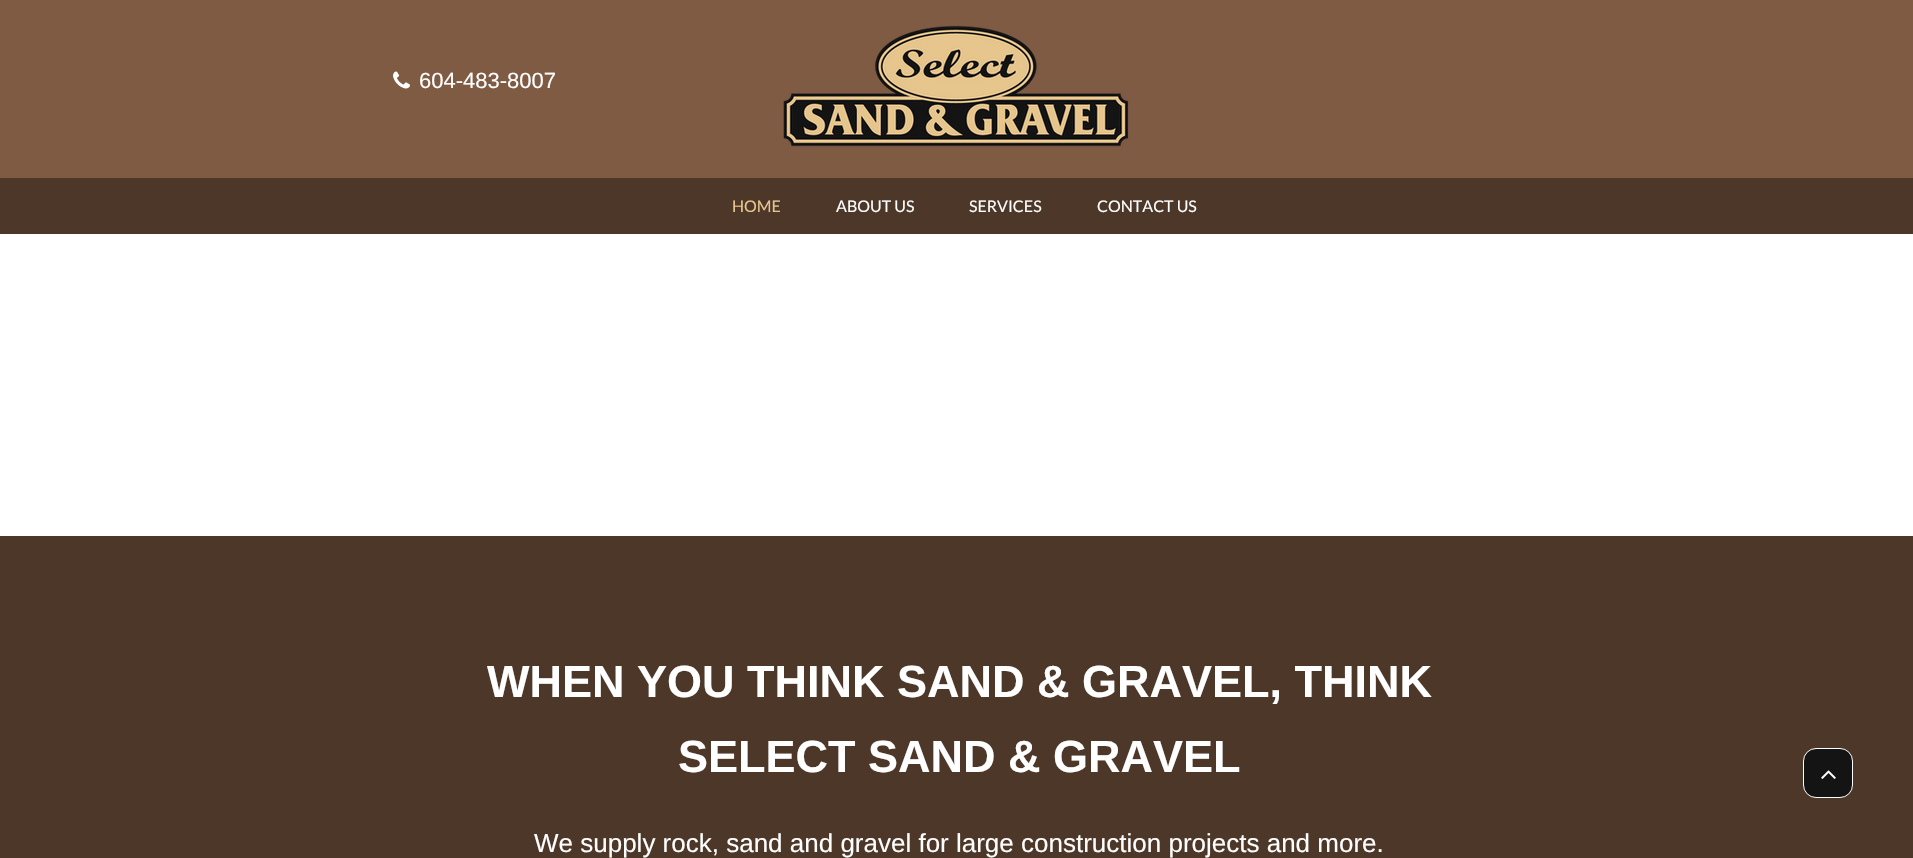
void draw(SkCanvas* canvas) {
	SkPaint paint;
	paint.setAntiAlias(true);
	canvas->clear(0xffffffff);
	paint.setColor(0xff7f5b44);
	canvas->drawRect(SkRect::MakeXYWH(0, 0, 1913, 178), paint);
	canvas->drawImageRect(SkImages::DeferredFromEncodedData(SkData::MakeFromFileName("img1.png")), SkRect::MakeXYWH(393, 71, 17, 18), SkSamplingOptions());
	SkFont f1(fontMgr->matchFamilyStyle("Liberation Sans", SkFontStyle::Normal()), 22);
	f1.setSubpixel(true);
	paint.setColor(0xffffffff);
	canvas->drawString("604-483-8007", 419, 88, f1, paint);
	canvas->drawImageRect(SkImages::DeferredFromEncodedData(SkData::MakeFromFileName("img2.png")), SkRect::MakeXYWH(783, 25, 346, 122), SkSamplingOptions());
	paint.setColor(0xff4c3729);
	canvas->drawRect(SkRect::MakeXYWH(0, 178, 1913, 56), paint);
	SkFont f2(fontMgr->matchFamilyStyle("Lato", SkFontStyle::Normal()), 16);
	f2.setSubpixel(true);
	paint.setColor(0xffe7c68e);
	canvas->drawString("HOME", 732, 212, f2, paint);
	paint.setColor(0xffffffff);
	canvas->drawString("ABOUT US", 836, 212, f2, paint);
	canvas->drawString("SERVICES", 969, 212, f2, paint);
	canvas->drawString("CONTACT US", 1097, 212, f2, paint);
	paint.setColor(0xff4c3729);
	canvas->drawRect(SkRect::MakeXYWH(0, 536, 1913, 322), paint);
	SkFont f3(fontMgr->matchFamilyStyle("Liberation Sans", SkFontStyle::Bold()), 45);
	f3.setSubpixel(true);
	paint.setColor(0xffffffff);
	canvas->drawString("WHEN YOU THINK SAND & GRAVEL, THINK", 487, 697, f3, paint);
	canvas->drawString("SELECT SAND & GRAVEL", 678, 772, f3, paint);
	SkFont f4(fontMgr->matchFamilyStyle("Liberation Sans", SkFontStyle::Normal()), 26);
	f4.setSubpixel(true);
	canvas->drawString("We supply rock, sand and gravel for large construction projects and more.", 534, 852, f4, paint);
	paint.setColor(0xff141414);
	canvas->drawRoundRect(SkRect::MakeXYWH(1803.5, 748.5, 49, 49), 12.5, 12.5, paint);
	paint.setStroke(true);
	paint.setStrokeWidth(1);
	paint.setColor(0xffffffff);
	canvas->drawRoundRect(SkRect::MakeXYWH(1803.5, 748.5, 49, 49), 12.5, 12.5, paint);
	canvas->drawImageRect(SkImages::DeferredFromEncodedData(SkData::MakeFromFileName("img3.png")), SkRect::MakeXYWH(1821, 770, 15, 9), SkSamplingOptions());
}
